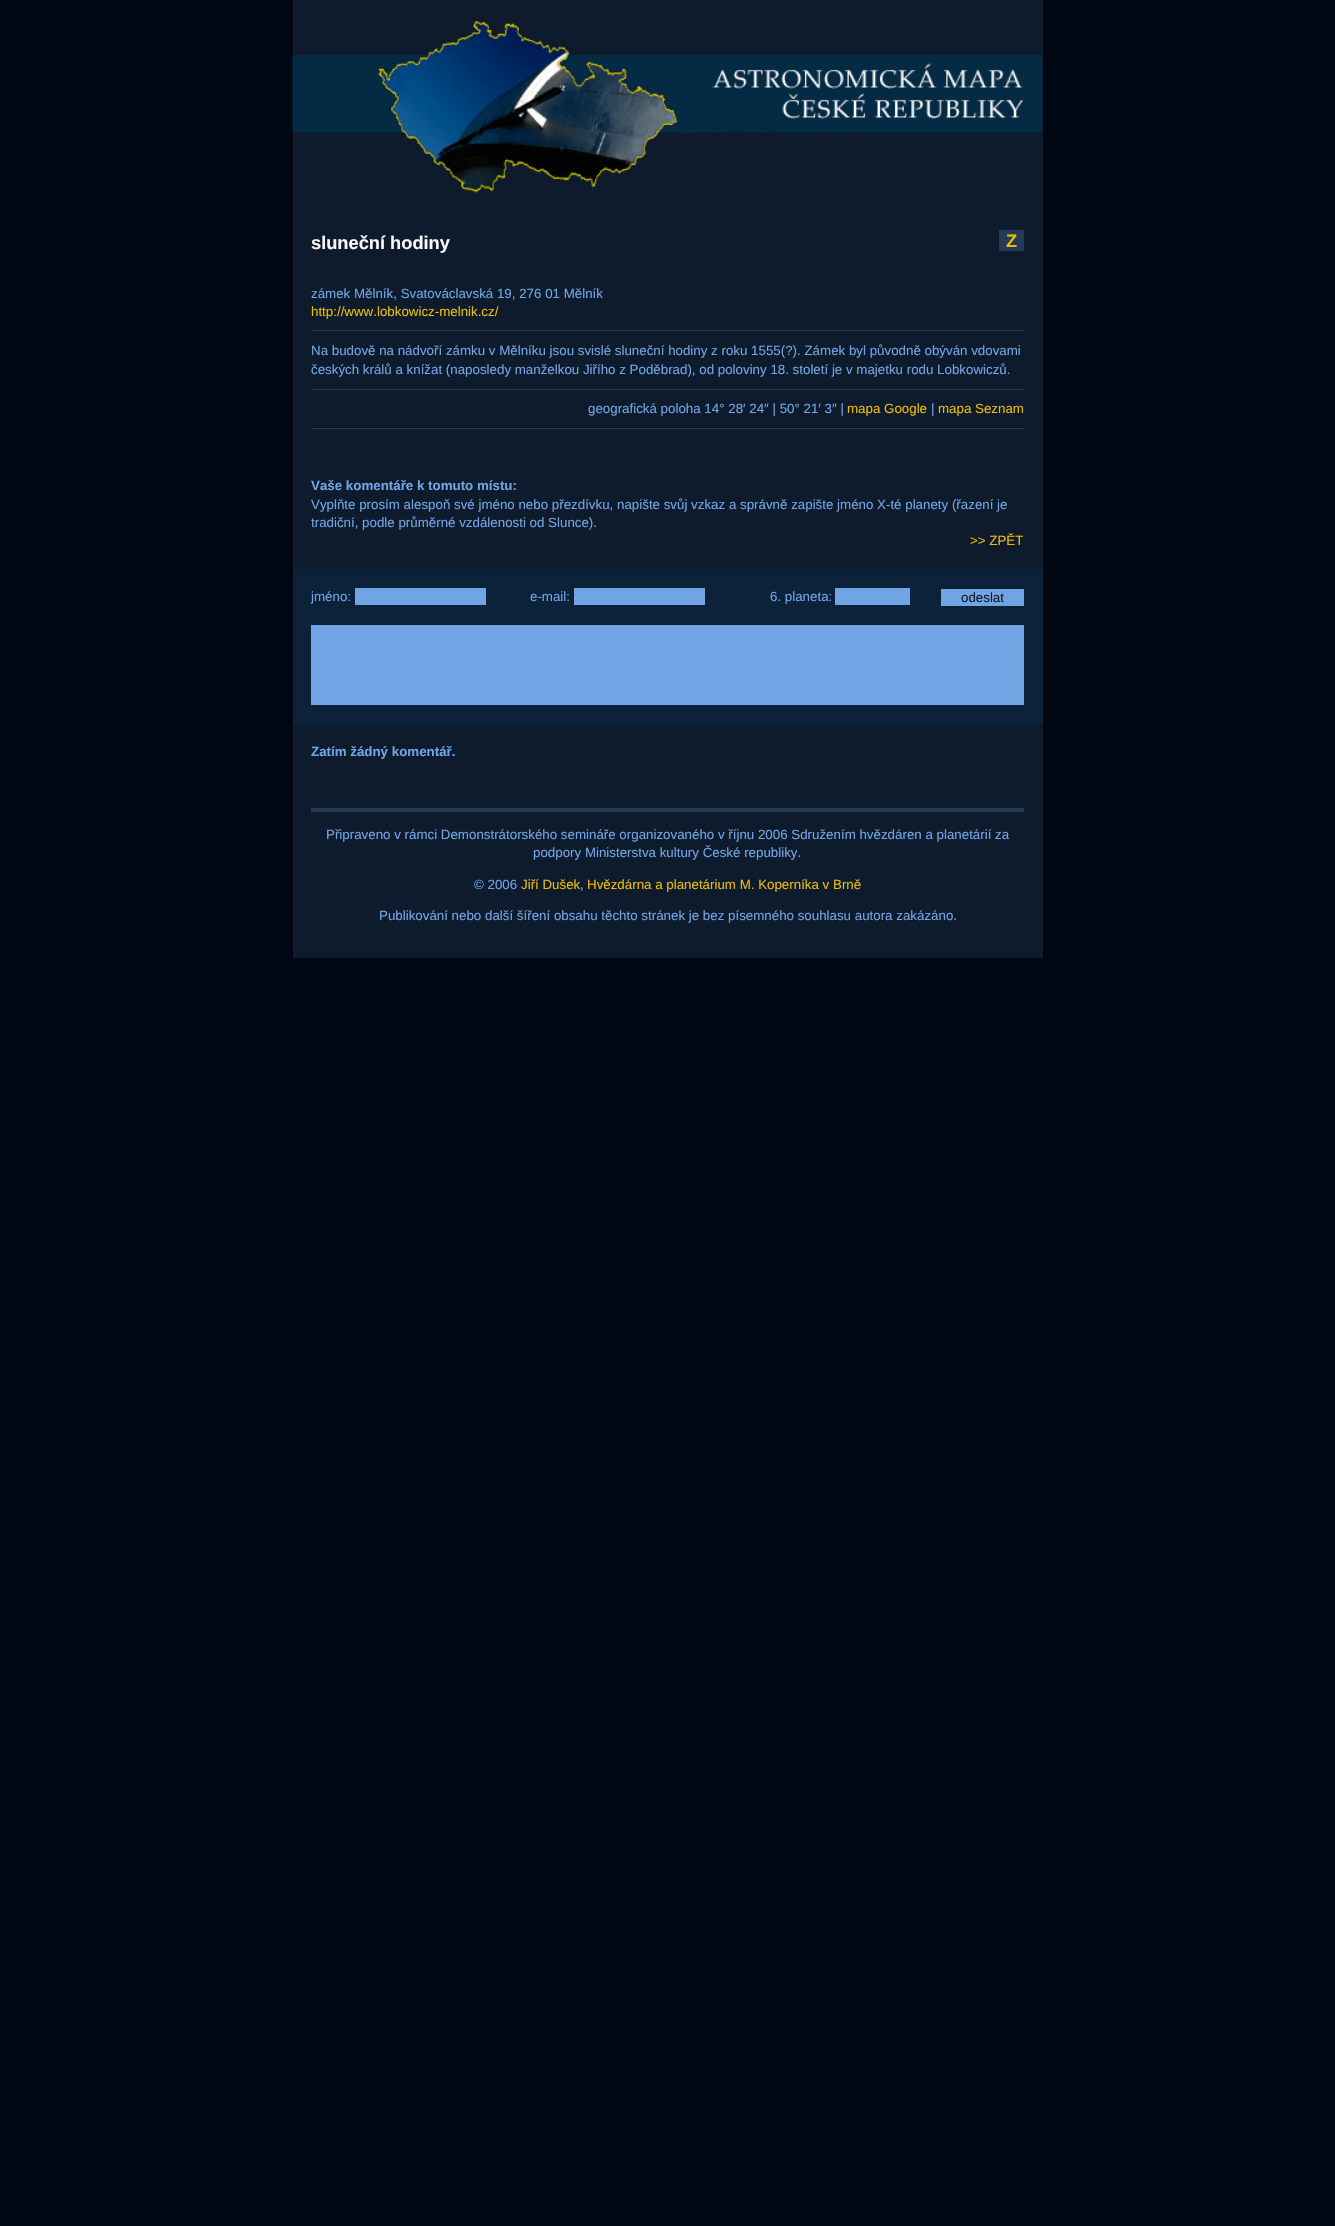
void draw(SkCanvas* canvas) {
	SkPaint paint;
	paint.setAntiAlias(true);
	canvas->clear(0xff000712);
	paint.setColor(0xff0e1b2c);
	canvas->drawRect(SkRect::MakeXYWH(293, 0, 750, 958), paint);
	canvas->drawImageRect(SkImages::DeferredFromEncodedData(SkData::MakeFromFileName("img1.png")), SkRect::MakeXYWH(292, 21, 751, 172), SkSamplingOptions());
	SkFont f1(fontMgr->matchFamilyStyle("Liberation Sans", SkFontStyle::Bold()), 18.25);
	f1.setSubpixel(true);
	paint.setColor(0xfff8f8f8);
	canvas->drawString("sluneční hodiny", 311, 249, f1, paint);
	paint.setColor(0xff233b56);
	canvas->drawRect(SkRect::MakeXYWH(999, 230, 25, 21), paint);
	paint.setColor(0xffeabb08);
	canvas->drawString("Z", 1006, 247, f1, paint);
	SkFont f2(fontMgr->matchFamilyStyle("Liberation Sans", SkFontStyle::Normal()), 13.33);
	f2.setSubpixel(true);
	paint.setColor(0xff70a4e4);
	canvas->drawString("zámek Mělník, Svatováclavská 19, 276 01 Mělník", 311, 298, f2, paint);
	paint.setColor(0xffeabb08);
	canvas->drawString("http://www.lobkowicz-melnik.cz/", 311, 316, f2, paint);
	paint.setColor(0xff233b56);
	canvas->drawRect(SkRect::MakeXYWH(311, 330, 713, 1), paint);
	paint.setColor(0xff70a4e4);
	canvas->drawString("Na budově na nádvoří zámku v Mělníku jsou svislé sluneční hodiny z roku 1555(?). Zámek byl původně obýván vdovami", 311, 355, f2, paint);
	canvas->drawString("českých králů a knížat (naposledy manželkou Jiřího z Poděbrad), od poloviny 18. století je v majetku rodu Lobkowiczů.", 311, 374, f2, paint);
	paint.setColor(0xff233b56);
	canvas->drawRect(SkRect::MakeXYWH(311, 389, 713, 1), paint);
	paint.setColor(0xff70a4e4);
	canvas->drawString("geografická poloha 14° 28′ 24″ | 50° 21′ 3″ |", 588, 413, f2, paint);
	paint.setColor(0xffeabb08);
	canvas->drawString("mapa Google", 847, 413, f2, paint);
	paint.setColor(0xff70a4e4);
	canvas->drawString("|", 931, 413, f2, paint);
	paint.setColor(0xffeabb08);
	canvas->drawString("mapa Seznam", 938, 413, f2, paint);
	paint.setColor(0xff233b56);
	canvas->drawRect(SkRect::MakeXYWH(311, 428, 713, 1), paint);
	SkFont f3(fontMgr->matchFamilyStyle("Liberation Sans", SkFontStyle::Bold()), 13.33);
	f3.setSubpixel(true);
	paint.setColor(0xff70a4e4);
	canvas->drawString("Vaše komentáře k tomuto místu:", 311, 490, f3, paint);
	canvas->drawString("Vyplňte prosím alespoň své jméno nebo přezdívku, napište svůj vzkaz a správně zapište jméno X-té planety (řazení je", 311, 509, f2, paint);
	canvas->drawString("tradiční, podle průměrné vzdálenosti od Slunce).", 311, 527, f2, paint);
	paint.setColor(0xffeabb08);
	canvas->drawString(">> ZPĚT", 970, 545, f2, paint);
	paint.setColor(0xff0c213a);
	canvas->drawRect(SkRect::MakeXYWH(293, 569, 750, 155), paint);
	paint.setColor(0xff70a4e4);
	canvas->drawString("jméno:", 311, 601, f2, paint);
	canvas->drawRect(SkRect::MakeXYWH(355, 588, 131, 17), paint);
	canvas->drawString("e-mail:", 530, 601, f2, paint);
	canvas->drawRect(SkRect::MakeXYWH(574, 588, 131, 17), paint);
	canvas->drawString("6. planeta:", 770, 601, f2, paint);
	canvas->drawRect(SkRect::MakeXYWH(835, 588, 75, 17), paint);
	canvas->drawRect(SkRect::MakeXYWH(941, 589, 83, 17), paint);
	paint.setColor(0xff0e1b2c);
	canvas->drawString("odeslat", 961, 602, f2, paint);
	paint.setColor(0xff70a4e4);
	canvas->drawRect(SkRect::MakeXYWH(311, 625, 713, 80), paint);
	canvas->drawString("Zatím žádný komentář.", 311, 756, f3, paint);
	paint.setColor(0xff233b56);
	canvas->drawRect(SkRect::MakeXYWH(311, 808, 713, 4), paint);
	paint.setColor(0xff70a4e4);
	canvas->drawString("Připraveno v rámci Demonstrátorského semináře organizovaného v říjnu 2006 Sdružením hvězdáren a planetárií za", 326, 839, f2, paint);
	canvas->drawString("podpory Ministerstva kultury České republiky.", 533, 857, f2, paint);
	canvas->drawString("© 2006", 474, 889, f2, paint);
	paint.setColor(0xffeabb08);
	canvas->drawString("Jiří Dušek", 521, 889, f2, paint);
	paint.setColor(0xff70a4e4);
	canvas->drawString(",", 580, 889, f2, paint);
	paint.setColor(0xffeabb08);
	canvas->drawString("Hvězdárna a planetárium M. Koperníka v Brně", 587, 889, f2, paint);
	paint.setColor(0xff70a4e4);
	canvas->drawString("Publikování nebo další šíření obsahu těchto stránek je bez písemného souhlasu autora zakázáno.", 379, 920, f2, paint);
}
